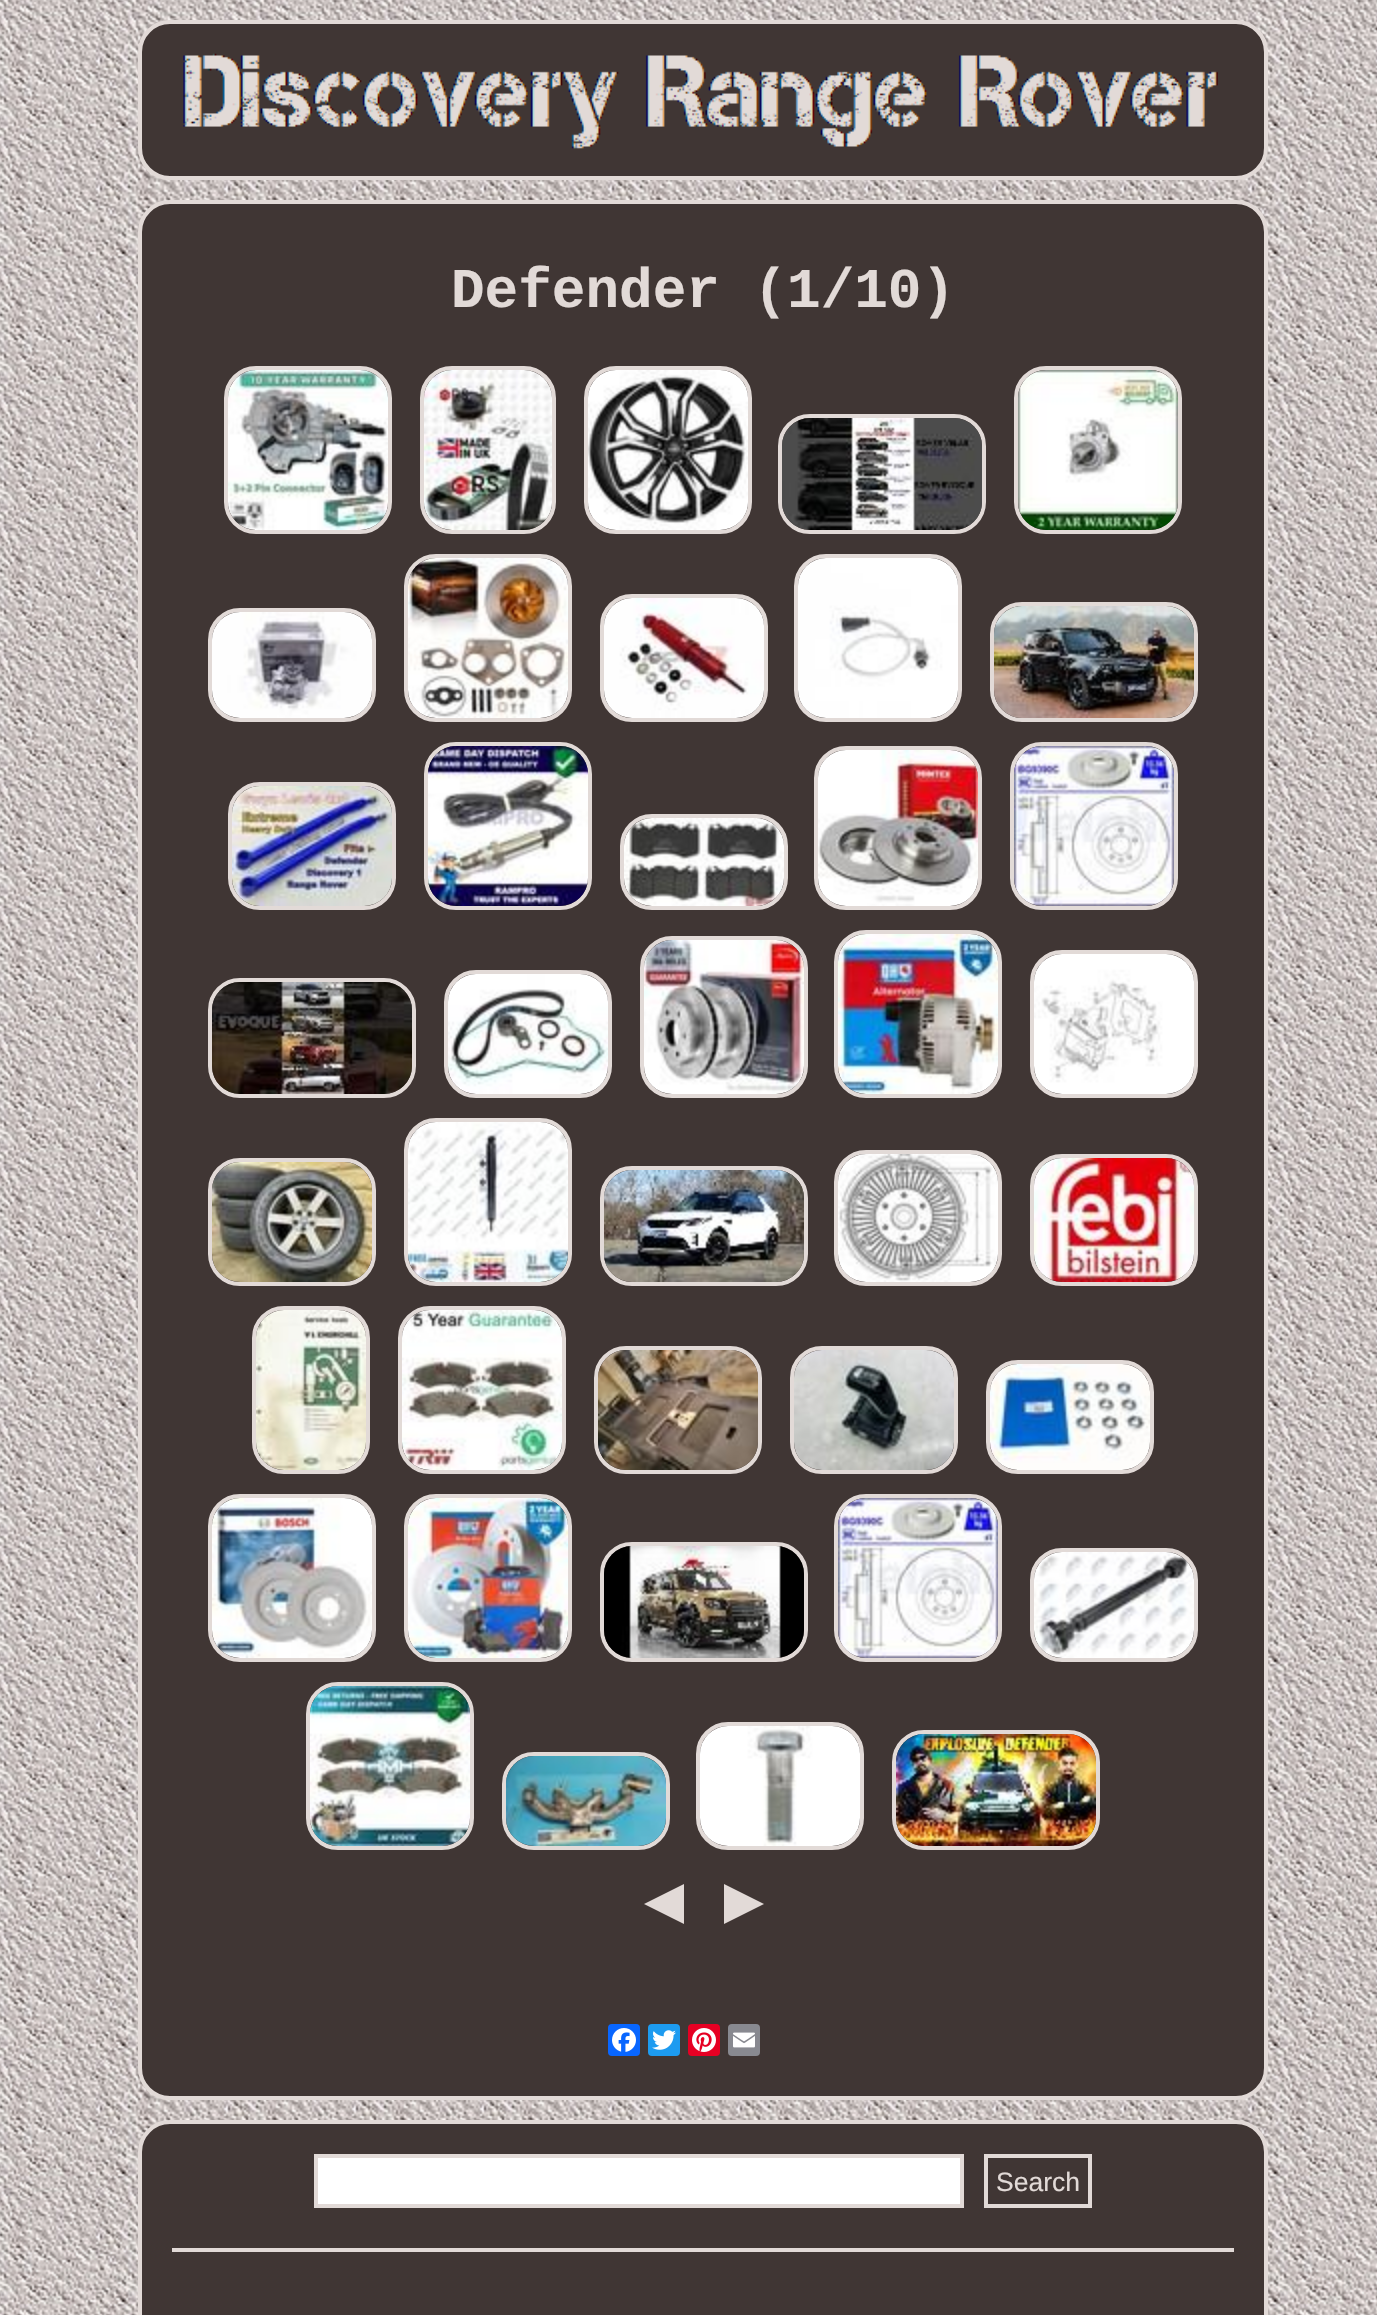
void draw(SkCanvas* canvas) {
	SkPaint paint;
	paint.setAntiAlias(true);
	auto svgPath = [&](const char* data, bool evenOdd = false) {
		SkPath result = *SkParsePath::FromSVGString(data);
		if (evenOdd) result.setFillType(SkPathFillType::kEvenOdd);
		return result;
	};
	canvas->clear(0xffffffff);
	canvas->drawImageRect(SkImages::DeferredFromEncodedData(SkData::MakeFromFileName("img1.png")), SkRect::MakeXYWH(0, 0, 1377, 2315), SkSamplingOptions());
	paint.setColor(0xff403634);
	canvas->drawRoundRect(SkRect::MakeXYWH(140, 22, 1126, 156), 30, 30, paint);
	paint.setStroke(true);
	paint.setStrokeWidth(4);
	paint.setColor(0xffe2dad7);
	canvas->drawRoundRect(SkRect::MakeXYWH(140, 22, 1126, 156), 30, 30, paint);
	canvas->drawImageRect(SkImages::DeferredFromEncodedData(SkData::MakeFromFileName("img2.png")), SkRect::MakeXYWH(183, 53, 1035, 96), SkSamplingOptions());
	paint.setStroke(false);
	paint.setColor(0xff403634);
	canvas->drawRoundRect(SkRect::MakeXYWH(140, 202, 1126, 1896), 30, 30, paint);
	paint.setStroke(true);
	paint.setColor(0xffe2dad7);
	canvas->drawRoundRect(SkRect::MakeXYWH(140, 202, 1126, 1896), 30, 30, paint);
	SkFont f1(fontMgr->matchFamilyStyle("Liberation Mono", SkFontStyle::Bold()), 56);
	f1.setSubpixel(true);
	paint.setStroke(false);
	canvas->drawString("Defender (1/10)", 451, 307, f1, paint);
	paint.setStroke(true);
	canvas->drawRoundRect(SkRect::MakeXYWH(226, 368, 164, 164), 30, 30, paint);
	canvas->drawRoundRect(SkRect::MakeXYWH(422, 368, 132, 164), 30, 30, paint);
	canvas->drawRoundRect(SkRect::MakeXYWH(586, 368, 164, 164), 30, 30, paint);
	canvas->drawRoundRect(SkRect::MakeXYWH(1016, 368, 164, 164), 30, 30, paint);
	canvas->drawImageRect(SkImages::DeferredFromEncodedData(SkData::MakeFromFileName("img3.png")), SkRect::MakeXYWH(228, 370, 160, 160), SkSamplingOptions());
	canvas->drawImageRect(SkImages::DeferredFromEncodedData(SkData::MakeFromFileName("img4.png")), SkRect::MakeXYWH(424, 370, 128, 160), SkSamplingOptions());
	canvas->drawImageRect(SkImages::DeferredFromEncodedData(SkData::MakeFromFileName("img5.png")), SkRect::MakeXYWH(588, 370, 160, 160), SkSamplingOptions());
	canvas->drawRoundRect(SkRect::MakeXYWH(780, 416, 204, 116), 30, 30, paint);
	canvas->drawImageRect(SkImages::DeferredFromEncodedData(SkData::MakeFromFileName("img6.png")), SkRect::MakeXYWH(1018, 370, 160, 160), SkSamplingOptions());
	canvas->drawImageRect(SkImages::DeferredFromEncodedData(SkData::MakeFromFileName("img7.png")), SkRect::MakeXYWH(782, 418, 200, 112), SkSamplingOptions());
	canvas->drawRoundRect(SkRect::MakeXYWH(406, 556, 164, 164), 30, 30, paint);
	canvas->drawRoundRect(SkRect::MakeXYWH(796, 556, 164, 164), 30, 30, paint);
	canvas->drawImageRect(SkImages::DeferredFromEncodedData(SkData::MakeFromFileName("img8.png")), SkRect::MakeXYWH(408, 558, 160, 160), SkSamplingOptions());
	canvas->drawRoundRect(SkRect::MakeXYWH(602, 596, 164, 124), 30, 30, paint);
	canvas->drawImageRect(SkImages::DeferredFromEncodedData(SkData::MakeFromFileName("img9.png")), SkRect::MakeXYWH(798, 558, 160, 160), SkSamplingOptions());
	canvas->drawImageRect(SkImages::DeferredFromEncodedData(SkData::MakeFromFileName("img10.png")), SkRect::MakeXYWH(604, 598, 160, 120), SkSamplingOptions());
	canvas->drawRoundRect(SkRect::MakeXYWH(992, 604, 204, 116), 30, 30, paint);
	canvas->drawRoundRect(SkRect::MakeXYWH(210, 610, 164, 110), 30, 30, paint);
	canvas->drawImageRect(SkImages::DeferredFromEncodedData(SkData::MakeFromFileName("img11.png")), SkRect::MakeXYWH(994, 606, 200, 112), SkSamplingOptions());
	canvas->drawImageRect(SkImages::DeferredFromEncodedData(SkData::MakeFromFileName("img12.png")), SkRect::MakeXYWH(212, 612, 160, 106), SkSamplingOptions());
	canvas->drawRoundRect(SkRect::MakeXYWH(426, 744, 164, 164), 30, 30, paint);
	canvas->drawRoundRect(SkRect::MakeXYWH(1012, 744, 164, 164), 30, 30, paint);
	canvas->drawImageRect(SkImages::DeferredFromEncodedData(SkData::MakeFromFileName("img13.png")), SkRect::MakeXYWH(428, 746, 160, 160), SkSamplingOptions());
	canvas->drawRoundRect(SkRect::MakeXYWH(816, 748, 164, 160), 30, 30, paint);
	canvas->drawImageRect(SkImages::DeferredFromEncodedData(SkData::MakeFromFileName("img14.png")), SkRect::MakeXYWH(1014, 746, 160, 160), SkSamplingOptions());
	canvas->drawRoundRect(SkRect::MakeXYWH(230, 784, 164, 124), 30, 30, paint);
	canvas->drawImageRect(SkImages::DeferredFromEncodedData(SkData::MakeFromFileName("img15.png")), SkRect::MakeXYWH(818, 750, 160, 156), SkSamplingOptions());
	canvas->drawImageRect(SkImages::DeferredFromEncodedData(SkData::MakeFromFileName("img16.png")), SkRect::MakeXYWH(232, 786, 160, 120), SkSamplingOptions());
	canvas->drawRoundRect(SkRect::MakeXYWH(622, 816, 164, 92), 30, 30, paint);
	canvas->drawImageRect(SkImages::DeferredFromEncodedData(SkData::MakeFromFileName("img17.png")), SkRect::MakeXYWH(624, 818, 160, 88), SkSamplingOptions());
	canvas->drawRoundRect(SkRect::MakeXYWH(836, 932, 164, 164), 30, 30, paint);
	canvas->drawRoundRect(SkRect::MakeXYWH(642, 938, 164, 158), 30, 30, paint);
	canvas->drawImageRect(SkImages::DeferredFromEncodedData(SkData::MakeFromFileName("img18.png")), SkRect::MakeXYWH(838, 934, 160, 160), SkSamplingOptions());
	canvas->drawImageRect(SkImages::DeferredFromEncodedData(SkData::MakeFromFileName("img19.png")), SkRect::MakeXYWH(644, 940, 160, 154), SkSamplingOptions());
	canvas->drawRoundRect(SkRect::MakeXYWH(1032, 952, 164, 144), 30, 30, paint);
	canvas->drawRoundRect(SkRect::MakeXYWH(446, 972, 164, 124), 30, 30, paint);
	canvas->drawImageRect(SkImages::DeferredFromEncodedData(SkData::MakeFromFileName("img20.png")), SkRect::MakeXYWH(1034, 954, 160, 140), SkSamplingOptions());
	canvas->drawRoundRect(SkRect::MakeXYWH(210, 980, 204, 116), 30, 30, paint);
	canvas->drawImageRect(SkImages::DeferredFromEncodedData(SkData::MakeFromFileName("img21.png")), SkRect::MakeXYWH(448, 974, 160, 120), SkSamplingOptions());
	canvas->drawImageRect(SkImages::DeferredFromEncodedData(SkData::MakeFromFileName("img22.png")), SkRect::MakeXYWH(212, 982, 200, 112), SkSamplingOptions());
	canvas->drawRoundRect(SkRect::MakeXYWH(406, 1120, 164, 164), 30, 30, paint);
	canvas->drawImageRect(SkImages::DeferredFromEncodedData(SkData::MakeFromFileName("img23.png")), SkRect::MakeXYWH(408, 1122, 160, 160), SkSamplingOptions());
	canvas->drawRoundRect(SkRect::MakeXYWH(836, 1152, 164, 132), 30, 30, paint);
	canvas->drawRoundRect(SkRect::MakeXYWH(210, 1160, 164, 124), 30, 30, paint);
	canvas->drawImageRect(SkImages::DeferredFromEncodedData(SkData::MakeFromFileName("img24.png")), SkRect::MakeXYWH(838, 1154, 160, 128), SkSamplingOptions());
	canvas->drawRoundRect(SkRect::MakeXYWH(1032, 1156, 164, 128), 30, 30, paint);
	canvas->drawImageRect(SkImages::DeferredFromEncodedData(SkData::MakeFromFileName("img25.png")), SkRect::MakeXYWH(212, 1162, 160, 120), SkSamplingOptions());
	canvas->drawRoundRect(SkRect::MakeXYWH(602, 1168, 204, 116), 30, 30, paint);
	canvas->drawImageRect(SkImages::DeferredFromEncodedData(SkData::MakeFromFileName("img26.png")), SkRect::MakeXYWH(1034, 1158, 160, 124), SkSamplingOptions());
	canvas->drawImageRect(SkImages::DeferredFromEncodedData(SkData::MakeFromFileName("img27.png")), SkRect::MakeXYWH(604, 1170, 200, 112), SkSamplingOptions());
	canvas->drawRoundRect(SkRect::MakeXYWH(254, 1308, 114, 164), 30, 30, paint);
	canvas->drawRoundRect(SkRect::MakeXYWH(400, 1308, 164, 164), 30, 30, paint);
	canvas->drawImageRect(SkImages::DeferredFromEncodedData(SkData::MakeFromFileName("img28.png")), SkRect::MakeXYWH(256, 1310, 110, 160), SkSamplingOptions());
	canvas->drawImageRect(SkImages::DeferredFromEncodedData(SkData::MakeFromFileName("img29.png")), SkRect::MakeXYWH(402, 1310, 160, 160), SkSamplingOptions());
	canvas->drawRoundRect(SkRect::MakeXYWH(596, 1348, 164, 124), 30, 30, paint);
	canvas->drawRoundRect(SkRect::MakeXYWH(792, 1348, 164, 124), 30, 30, paint);
	canvas->drawImageRect(SkImages::DeferredFromEncodedData(SkData::MakeFromFileName("img30.png")), SkRect::MakeXYWH(598, 1350, 160, 120), SkSamplingOptions());
	canvas->drawImageRect(SkImages::DeferredFromEncodedData(SkData::MakeFromFileName("img31.png")), SkRect::MakeXYWH(794, 1350, 160, 120), SkSamplingOptions());
	canvas->drawRoundRect(SkRect::MakeXYWH(988, 1362, 164, 110), 30, 30, paint);
	canvas->drawImageRect(SkImages::DeferredFromEncodedData(SkData::MakeFromFileName("img32.png")), SkRect::MakeXYWH(990, 1364, 160, 106), SkSamplingOptions());
	canvas->drawRoundRect(SkRect::MakeXYWH(210, 1496, 164, 164), 30, 30, paint);
	canvas->drawRoundRect(SkRect::MakeXYWH(406, 1496, 164, 164), 30, 30, paint);
	canvas->drawRoundRect(SkRect::MakeXYWH(836, 1496, 164, 164), 30, 30, paint);
	canvas->drawImageRect(SkImages::DeferredFromEncodedData(SkData::MakeFromFileName("img33.png")), SkRect::MakeXYWH(212, 1498, 160, 160), SkSamplingOptions());
	canvas->drawImageRect(SkImages::DeferredFromEncodedData(SkData::MakeFromFileName("img34.png")), SkRect::MakeXYWH(408, 1498, 160, 160), SkSamplingOptions());
	canvas->drawRoundRect(SkRect::MakeXYWH(602, 1544, 204, 116), 30, 30, paint);
	canvas->drawImageRect(SkImages::DeferredFromEncodedData(SkData::MakeFromFileName("img35.png")), SkRect::MakeXYWH(838, 1498, 160, 160), SkSamplingOptions());
	canvas->drawImageRect(SkImages::DeferredFromEncodedData(SkData::MakeFromFileName("img36.png")), SkRect::MakeXYWH(604, 1546, 200, 112), SkSamplingOptions());
	canvas->drawRoundRect(SkRect::MakeXYWH(1032, 1550, 164, 110), 30, 30, paint);
	canvas->drawImageRect(SkImages::DeferredFromEncodedData(SkData::MakeFromFileName("img37.png")), SkRect::MakeXYWH(1034, 1552, 160, 106), SkSamplingOptions());
	canvas->drawRoundRect(SkRect::MakeXYWH(308, 1684, 164, 164), 30, 30, paint);
	canvas->drawImageRect(SkImages::DeferredFromEncodedData(SkData::MakeFromFileName("img38.png")), SkRect::MakeXYWH(310, 1686, 160, 160), SkSamplingOptions());
	canvas->drawRoundRect(SkRect::MakeXYWH(698, 1724, 164, 124), 30, 30, paint);
	canvas->drawImageRect(SkImages::DeferredFromEncodedData(SkData::MakeFromFileName("img39.png")), SkRect::MakeXYWH(700, 1726, 160, 120), SkSamplingOptions());
	canvas->drawRoundRect(SkRect::MakeXYWH(894, 1732, 204, 116), 30, 30, paint);
	canvas->drawRoundRect(SkRect::MakeXYWH(504, 1754, 164, 94), 30, 30, paint);
	canvas->drawImageRect(SkImages::DeferredFromEncodedData(SkData::MakeFromFileName("img40.png")), SkRect::MakeXYWH(896, 1734, 200, 112), SkSamplingOptions());
	canvas->drawImageRect(SkImages::DeferredFromEncodedData(SkData::MakeFromFileName("img41.png")), SkRect::MakeXYWH(506, 1756, 160, 90), SkSamplingOptions());
	paint.setStroke(false);
	canvas->drawPath(svgPath("M684 1884V1924L644 1904Z"), paint);
	canvas->drawPath(svgPath("M724 1924V1884L764 1904Z"), paint);
	paint.setColor(0xff0866ff);
	canvas->drawRoundRect(SkRect::MakeXYWH(608, 2024, 32, 32), 4, 4, paint);
	canvas->drawImageRect(SkImages::DeferredFromEncodedData(SkData::MakeFromFileName("img42.png")), SkRect::MakeXYWH(612, 2028, 24, 24), SkSamplingOptions());
	paint.setColor(0xff1d9bf0);
	canvas->drawRoundRect(SkRect::MakeXYWH(648, 2024, 32, 32), 4, 4, paint);
	canvas->drawImageRect(SkImages::DeferredFromEncodedData(SkData::MakeFromFileName("img43.png")), SkRect::MakeXYWH(652, 2030, 24, 20), SkSamplingOptions());
	paint.setColor(0xffe60023);
	canvas->drawRoundRect(SkRect::MakeXYWH(688, 2024, 32, 32), 4, 4, paint);
	canvas->drawImageRect(SkImages::DeferredFromEncodedData(SkData::MakeFromFileName("img44.png")), SkRect::MakeXYWH(692, 2028, 24, 24), SkSamplingOptions());
	paint.setColor(0xff888990);
	canvas->drawRoundRect(SkRect::MakeXYWH(728, 2024, 32, 32), 4, 4, paint);
	canvas->drawImageRect(SkImages::DeferredFromEncodedData(SkData::MakeFromFileName("img45.png")), SkRect::MakeXYWH(733, 2032, 22, 16), SkSamplingOptions());
	paint.setColor(0xff403634);
	canvas->drawRoundRect(SkRect::MakeXYWH(140, 2122, 1126, 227), 30, 30, paint);
	paint.setStroke(true);
	paint.setColor(0xffe2dad7);
	canvas->drawRoundRect(SkRect::MakeXYWH(140, 2122, 1126, 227), 30, 30, paint);
	paint.setStroke(false);
	paint.setColor(0xffffffff);
	canvas->drawRect(SkRect::MakeXYWH(316, 2156, 646, 50), paint);
	paint.setStroke(true);
	paint.setColor(0xffe2dad7);
	canvas->drawRect(SkRect::MakeXYWH(316, 2156, 646, 50), paint);
	canvas->drawRect(SkRect::MakeXYWH(986, 2156, 104, 50), paint);
	SkFont f2(fontMgr->matchFamilyStyle("Liberation Sans", SkFontStyle::Normal()), 26.5);
	f2.setSubpixel(true);
	paint.setStroke(false);
	canvas->drawString("Search", 996, 2191, f2, paint);
	canvas->drawRect(SkRect::MakeXYWH(172, 2248, 1062, 4), paint);
}
